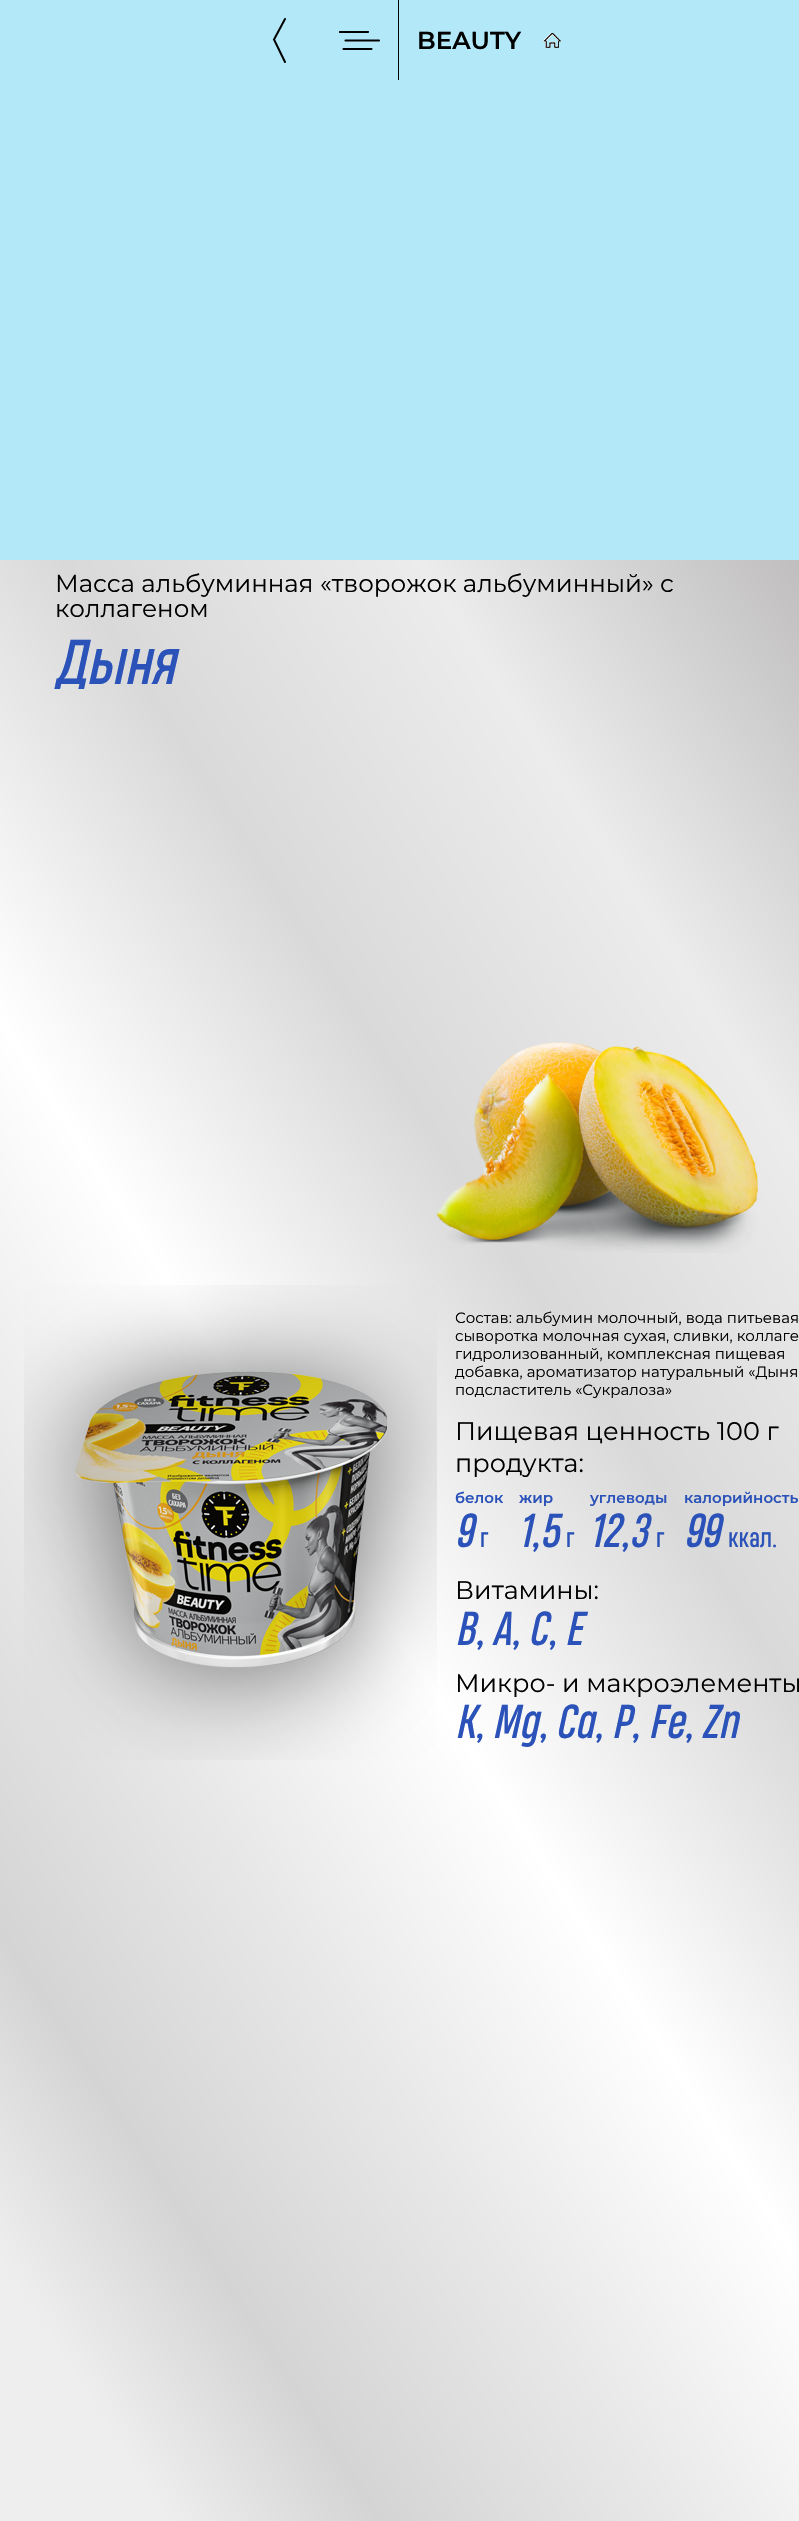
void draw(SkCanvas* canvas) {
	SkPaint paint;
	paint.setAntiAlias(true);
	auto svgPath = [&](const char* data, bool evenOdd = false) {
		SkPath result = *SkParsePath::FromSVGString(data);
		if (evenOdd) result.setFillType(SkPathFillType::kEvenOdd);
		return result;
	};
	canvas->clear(0xffb3e8f9);
	paint.setColor(0xff000000);
	canvas->drawRect(SkRect::MakeXYWH(398, 0, 1, 80), paint);
	paint.setStroke(true);
	paint.setStrokeWidth(2);
	paint.setStrokeCap(SkPaint::kRound_Cap);
	canvas->drawPath(svgPath("M285 62L274 39.5L285 19"), paint);
	canvas->save();
	canvas->clipRect(SkRect::MakeXYWH(339, 31, 41, 20));
	paint.setStrokeWidth(2.1);
	canvas->drawPath(svgPath("M340 32H368"), paint);
	canvas->restore();
	canvas->drawPath(svgPath("M345.5 40.5H379M343.5 49H371.5"), paint);
	SkFont f1(fontMgr->matchFamilyStyle("Montserrat", SkFontStyle(600, SkFontStyle::kNormal_Width, SkFontStyle::kUpright_Slant)), 24.55);
	f1.setSubpixel(true);
	paint.setStroke(false);
	canvas->drawString("BEAUTY", 417, 49, f1, paint);
	canvas->drawImageRect(SkImages::DeferredFromEncodedData(SkData::MakeFromFileName("img1.png")), SkRect::MakeXYWH(543, 33, 18, 15), SkSamplingOptions());
	{
		const SkColor colors[] = {0xffeeeeee, 0xffd4d4d4, 0xffe8e8e8, 0xffffffff, 0xffd9d9d9, 0xffececec, 0xffbbb9b9};
		const float stops[] = {0.08, 0.18, 0.32, 0.46, 0.63, 0.8, 1};
		const SkPoint ends[] = {{-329, 2010}, {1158, 1052}};
		paint.setShader(SkGradientShader::MakeLinear(ends, colors, stops, 7, SkTileMode::kClamp));
		paint.setAlpha(255);
	}
	canvas->drawRect(SkRect::MakeXYWH(0, 560, 799, 1961), paint);
	canvas->drawImageRect(SkImages::DeferredFromEncodedData(SkData::MakeFromFileName("img2.png")), SkRect::MakeXYWH(436, 1042, 322, 211), SkSamplingOptions());
	SkFont f2(fontMgr->matchFamilyStyle("Montserrat", SkFontStyle::Normal()), 24.55);
	f2.setSubpixel(true);
	paint.setShader(nullptr);
	paint.setColor(0xff000000);
	canvas->drawString("Масса альбуминная «творожок альбуминный» с", 55, 592, f2, paint);
	canvas->drawString("коллагеном", 55, 617, f2, paint);
	SkFont f3(fontMgr->matchFamilyStyle("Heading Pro", SkFontStyle::Italic()), 59.5);
	f3.setSubpixel(true);
	paint.setColor(0xff2a52b8);
	canvas->drawString("Дыня", 55, 684, f3, paint);
	canvas->drawImageRect(SkImages::DeferredFromEncodedData(SkData::MakeFromFileName("img3.png")), SkRect::MakeXYWH(24, 1285, 413, 475), SkSamplingOptions());
	SkFont f4(fontMgr->matchFamilyStyle("Montserrat", SkFontStyle::Normal()), 15);
	f4.setSubpixel(true);
	paint.setColor(0xff000000);
	canvas->drawString("Состав: альбумин молочный, вода питьевая", 455, 1323, f4, paint);
	canvas->drawString("сыворотка молочная сухая, сливки, коллаге", 455, 1341, f4, paint);
	canvas->drawString("гидролизованный, комплексная пищевая", 455, 1359, f4, paint);
	canvas->drawString("добавка, ароматизатор натуральный «Дыня", 455, 1377, f4, paint);
	canvas->drawString("подсластитель «Сукралоза»", 455, 1395, f4, paint);
	SkFont f5(fontMgr->matchFamilyStyle("Montserrat", SkFontStyle::Normal()), 25.5);
	f5.setSubpixel(true);
	canvas->drawString("Пищевая ценность 100 г", 455, 1440, f5, paint);
	canvas->drawString("продукта:", 455, 1472, f5, paint);
	SkFont f6(fontMgr->matchFamilyStyle("Montserrat", SkFontStyle(600, SkFontStyle::kNormal_Width, SkFontStyle::kUpright_Slant)), 15);
	f6.setSubpixel(true);
	paint.setColor(0xff2a52b8);
	canvas->drawString("белок", 455, 1503, f6, paint);
	SkFont f7(fontMgr->matchFamilyStyle("Heading Pro", SkFontStyle::Italic()), 44.75);
	f7.setSubpixel(true);
	canvas->drawString("9", 455, 1547, f7, paint);
	SkFont f8(fontMgr->matchFamilyStyle("Heading Pro", SkFontStyle::Normal()), 25);
	f8.setSubpixel(true);
	canvas->drawString("г", 480, 1547, f8, paint);
	canvas->drawString("жир", 519, 1503, f6, paint);
	canvas->drawString("1,5", 519, 1547, f7, paint);
	canvas->drawString("г", 566, 1547, f8, paint);
	canvas->drawString("углеводы", 590, 1503, f6, paint);
	canvas->drawString("12,3", 590, 1547, f7, paint);
	canvas->drawString("г", 656, 1547, f8, paint);
	canvas->drawString("калорийность", 684, 1503, f6, paint);
	canvas->drawString("99", 684, 1547, f7, paint);
	canvas->drawString("ккал.", 728, 1547, f8, paint);
	paint.setColor(0xff000000);
	canvas->drawString("Витамины:", 455, 1599, f5, paint);
	paint.setColor(0xff2a52b8);
	canvas->drawString("В, А, С, Е", 455, 1645, f7, paint);
	paint.setColor(0xff000000);
	canvas->drawString("Микро- и макроэлементы", 455, 1692, f5, paint);
	paint.setColor(0xff2a52b8);
	canvas->drawString("K, Mg, Ca, P, Fe, Zn", 455, 1738, f7, paint);
}
